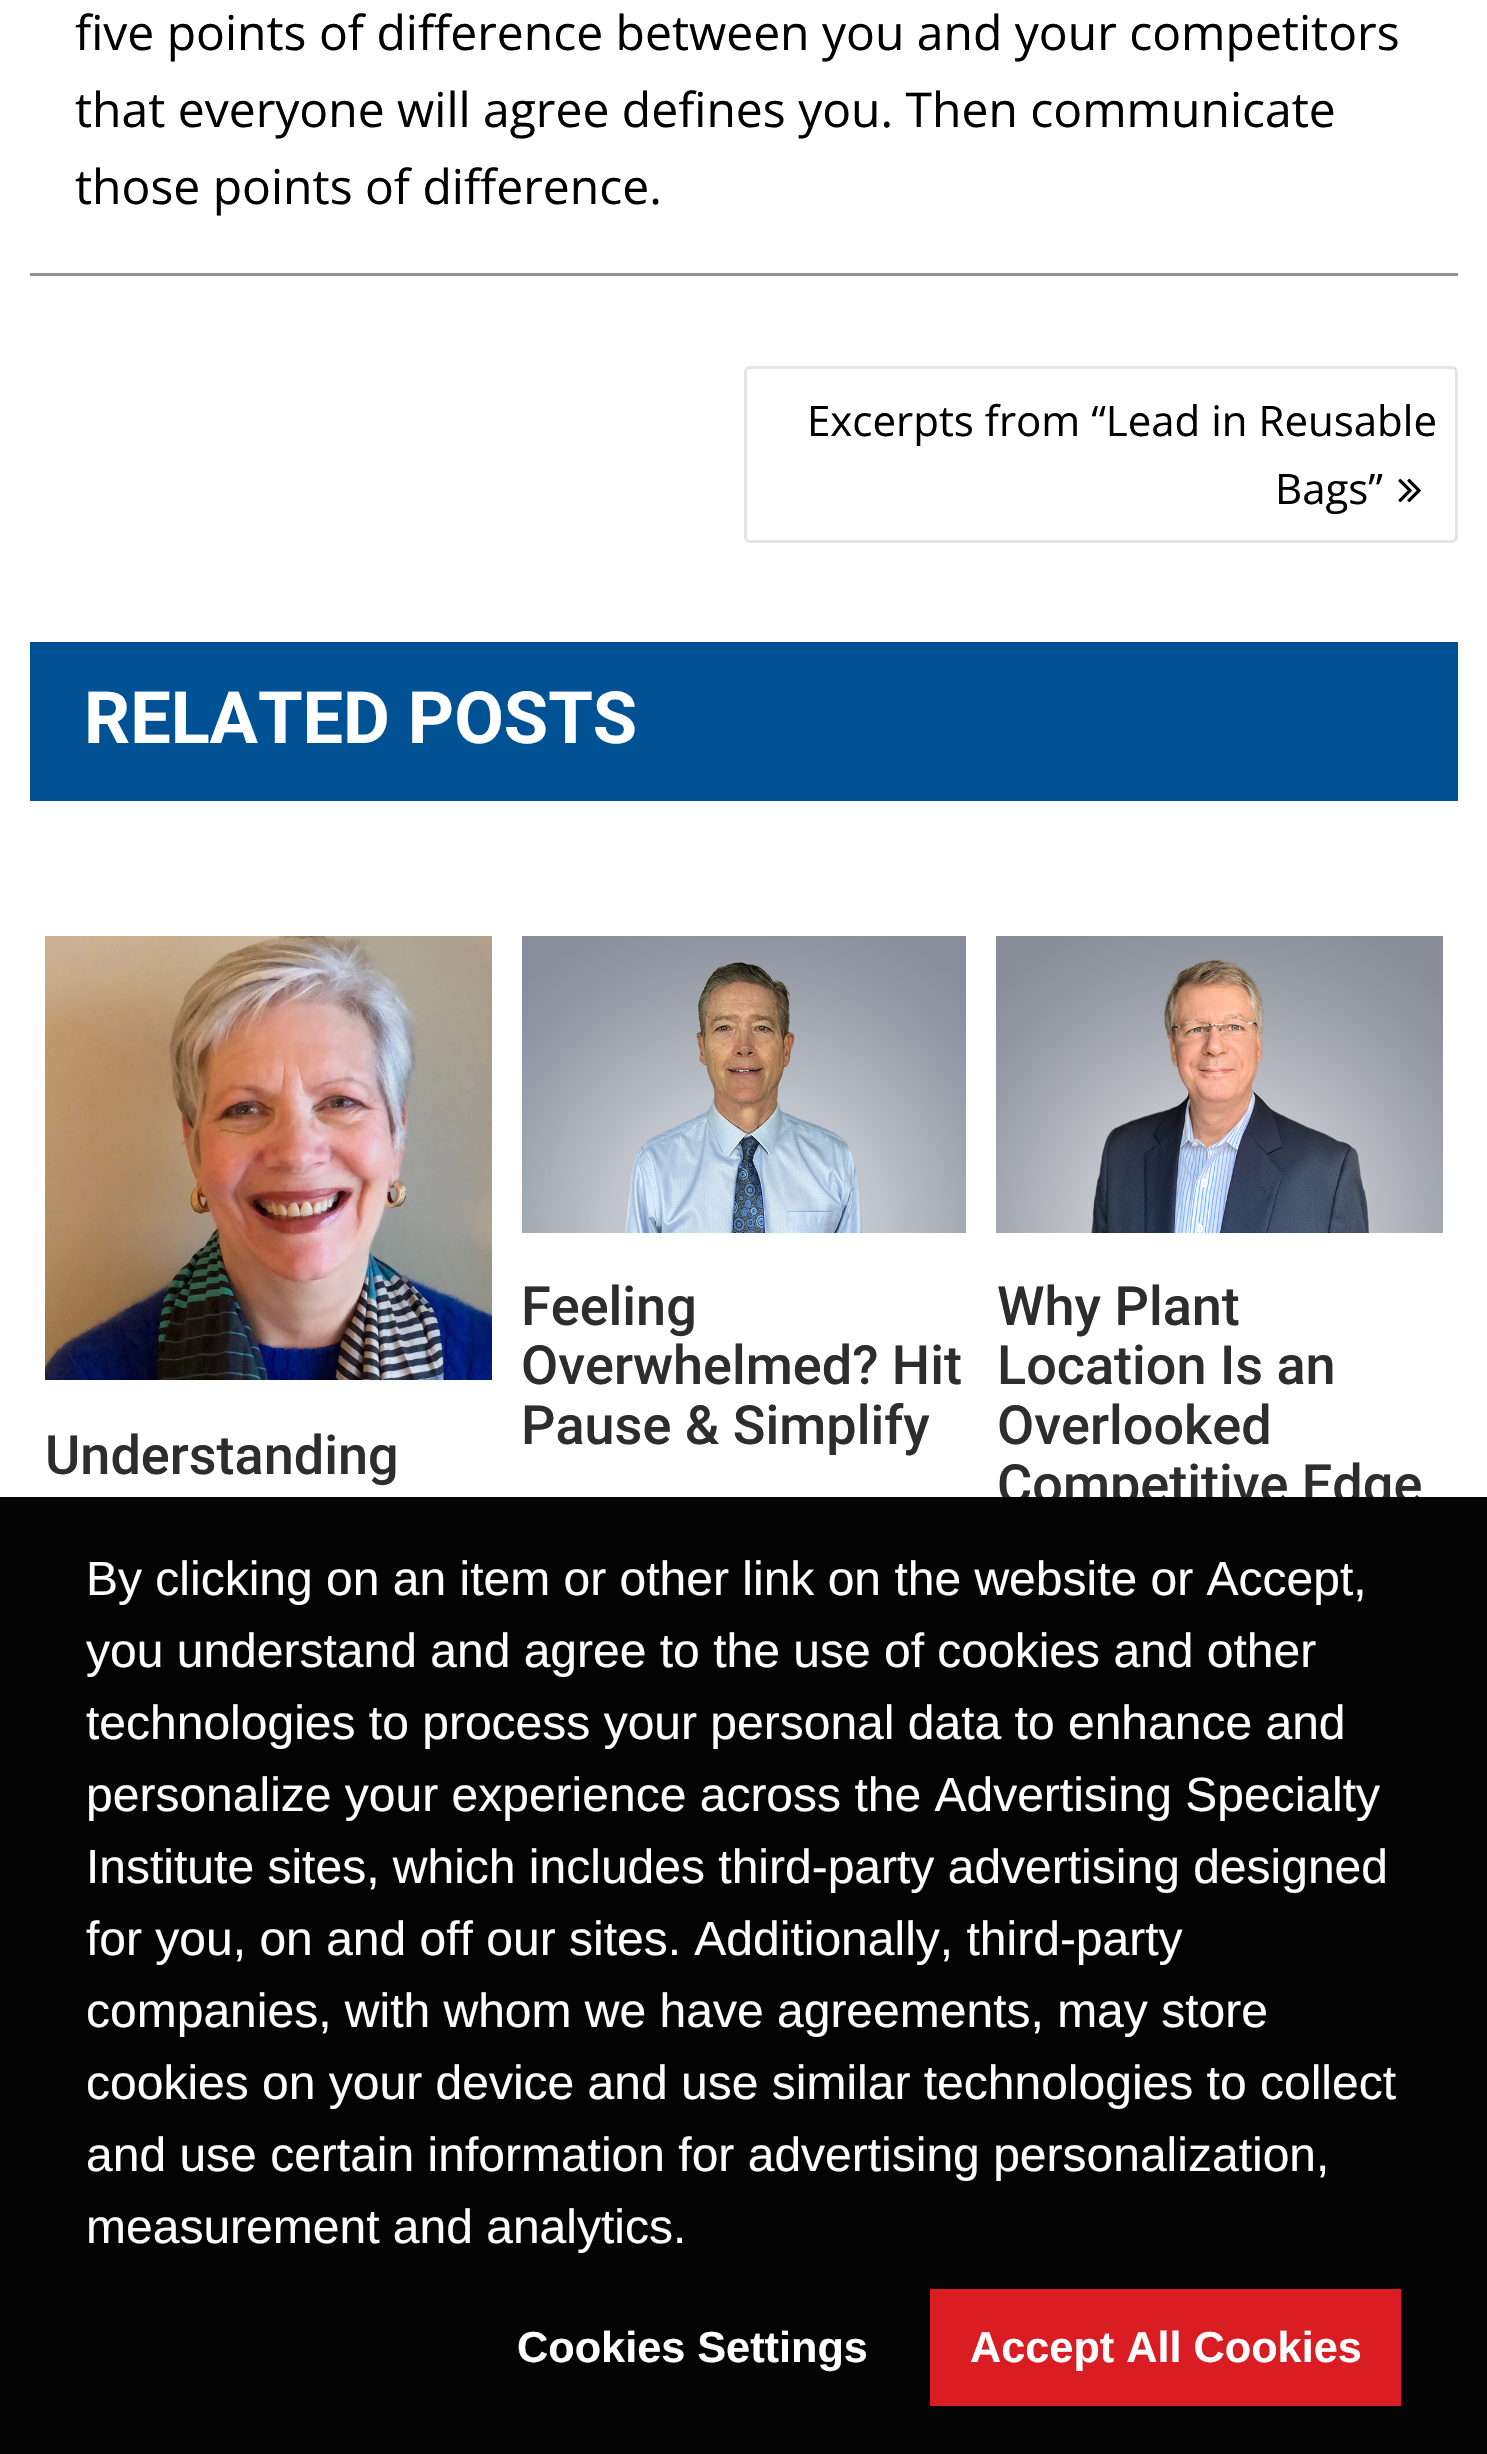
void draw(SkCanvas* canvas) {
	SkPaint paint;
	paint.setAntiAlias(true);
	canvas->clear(0xffffffff);
	paint.setColor(0xff919191);
	canvas->drawRect(SkRect::MakeXYWH(30, 273, 1428, 3), paint);
	SkFont f1(fontMgr->matchFamilyStyle("Open Sans", SkFontStyle::Normal()), 48);
	f1.setSubpixel(true);
	paint.setColor(0xff000000);
	canvas->drawString("five points of difference between you and your competitors", 75, 50, f1, paint);
	canvas->drawString("that everyone will agree defines you. Then communicate", 75, 127, f1, paint);
	canvas->drawString("those points of difference.", 75, 204, f1, paint);
	paint.setStroke(true);
	paint.setStrokeWidth(3);
	paint.setColor(0xffe5e5e5);
	canvas->drawRoundRect(SkRect::MakeXYWH(745.5, 367.5, 711, 174), 4.5, 4.5, paint);
	SkFont f2(fontMgr->matchFamilyStyle("Open Sans", SkFontStyle::Normal()), 42);
	f2.setSubpixel(true);
	paint.setStroke(false);
	paint.setColor(0xff000000);
	canvas->drawString("Excerpts from “Lead in Reusable", 807, 436, f2, paint);
	canvas->drawString("Bags”", 1275, 504, f2, paint);
	canvas->drawImageRect(SkImages::DeferredFromEncodedData(SkData::MakeFromFileName("img1.png")), SkRect::MakeXYWH(1398, 478, 23, 25), SkSamplingOptions());
	paint.setColor(0xff005295);
	canvas->drawRect(SkRect::MakeXYWH(30, 642, 1428, 159), paint);
	SkFont f3(fontMgr->matchFamilyStyle("Roboto", SkFontStyle::Bold()), 72);
	f3.setSubpixel(true);
	paint.setColor(0xffffffff);
	canvas->drawString("RELATED POSTS", 84, 743, f3, paint);
	canvas->drawImageRect(SkImages::DeferredFromEncodedData(SkData::MakeFromFileName("img2.png")), SkRect::MakeXYWH(45, 936, 447, 444), SkSamplingOptions());
	SkFont f4(fontMgr->matchFamilyStyle("Roboto", SkFontStyle(500, SkFontStyle::kNormal_Width, SkFontStyle::kUpright_Slant)), 54);
	f4.setSubpixel(true);
	paint.setColor(0xff2d2d2d);
	canvas->drawString("Understanding", 45, 1474, f4, paint);
	canvas->drawImageRect(SkImages::DeferredFromEncodedData(SkData::MakeFromFileName("img3.png")), SkRect::MakeXYWH(522, 936, 444, 297), SkSamplingOptions());
	canvas->drawString("Feeling", 521, 1325, f4, paint);
	canvas->drawString("Overwhelmed? Hit", 521, 1384, f4, paint);
	canvas->drawString("Pause & Simplify", 521, 1444, f4, paint);
	canvas->drawImageRect(SkImages::DeferredFromEncodedData(SkData::MakeFromFileName("img4.png")), SkRect::MakeXYWH(996, 936, 447, 297), SkSamplingOptions());
	canvas->drawString("Why Plant", 997, 1325, f4, paint);
	canvas->drawString("Location Is an", 997, 1384, f4, paint);
	canvas->drawString("Overlooked", 997, 1444, f4, paint);
	canvas->drawString("Competitive Edge", 997, 1503, f4, paint);
	paint.setColor(0xff040404);
	canvas->drawRect(SkRect::MakeXYWH(0, 1497, 1487, 957), paint);
	SkFont f5(fontMgr->matchFamilyStyle("Liberation Sans", SkFontStyle::Normal()), 48);
	f5.setSubpixel(true);
	paint.setColor(0xffffffff);
	canvas->drawString("By clicking on an item or other link on the website or Accept,", 86, 1595, f5, paint);
	canvas->drawString("you understand and agree to the use of cookies and other", 86, 1667, f5, paint);
	canvas->drawString("technologies to process your personal data to enhance and", 86, 1739, f5, paint);
	canvas->drawString("personalize your experience across the Advertising Specialty", 86, 1811, f5, paint);
	canvas->drawString("Institute sites, which includes third-party advertising designed", 86, 1883, f5, paint);
	canvas->drawString("for you, on and off our sites. Additionally, third-party", 86, 1955, f5, paint);
	canvas->drawString("companies, with whom we have agreements, may store", 86, 2027, f5, paint);
	canvas->drawString("cookies on your device and use similar technologies to collect", 86, 2099, f5, paint);
	canvas->drawString("and use certain information for advertising personalization,", 86, 2171, f5, paint);
	canvas->drawString("measurement and analytics.", 86, 2243, f5, paint);
	SkFont f6(fontMgr->matchFamilyStyle("Liberation Sans", SkFontStyle::Bold()), 43.25);
	f6.setSubpixel(true);
	canvas->drawString("Cookies Settings", 517, 2362, f6, paint);
	paint.setColor(0xffda1c23);
	canvas->drawRect(SkRect::MakeXYWH(930, 2289, 471, 117), paint);
	paint.setColor(0xffffffff);
	canvas->drawString("Accept All Cookies", 970, 2362, f6, paint);
}
